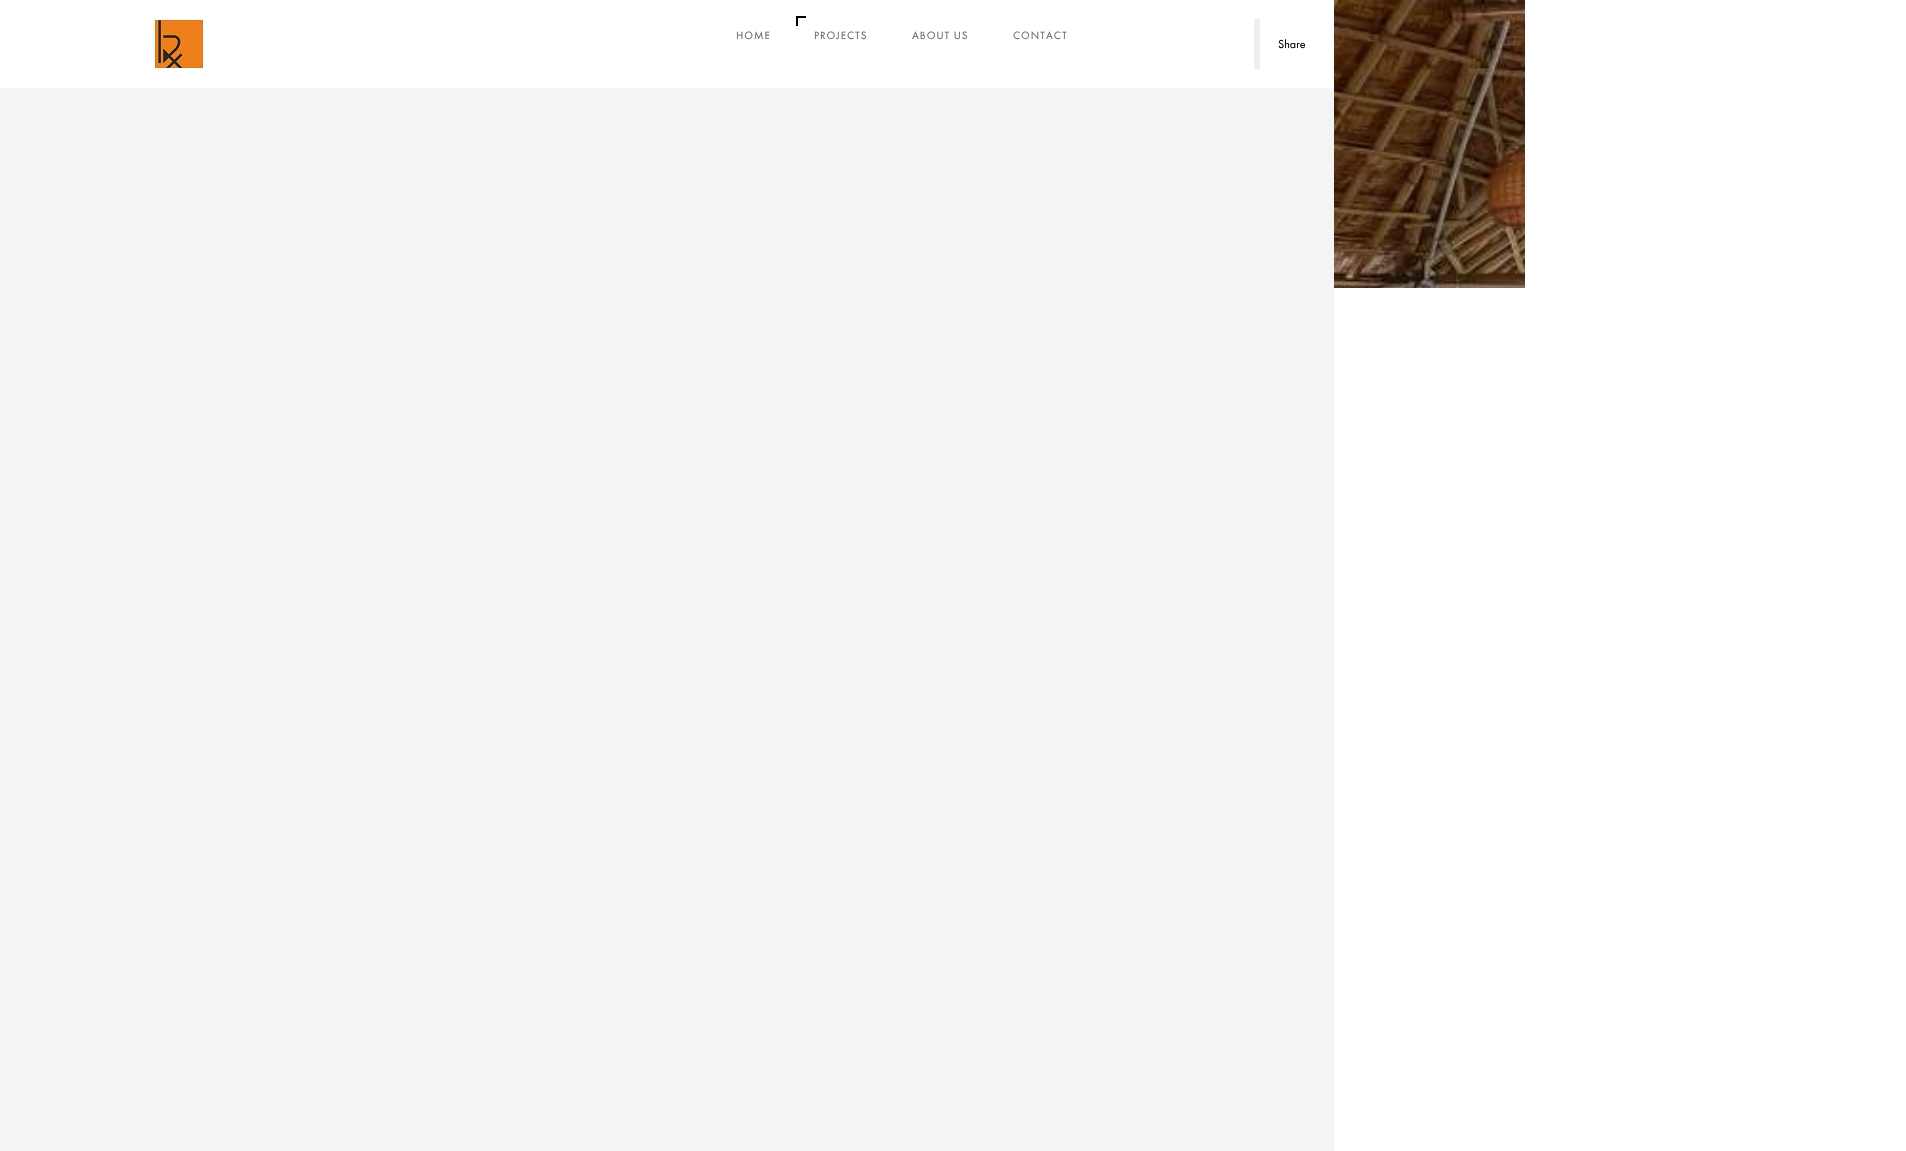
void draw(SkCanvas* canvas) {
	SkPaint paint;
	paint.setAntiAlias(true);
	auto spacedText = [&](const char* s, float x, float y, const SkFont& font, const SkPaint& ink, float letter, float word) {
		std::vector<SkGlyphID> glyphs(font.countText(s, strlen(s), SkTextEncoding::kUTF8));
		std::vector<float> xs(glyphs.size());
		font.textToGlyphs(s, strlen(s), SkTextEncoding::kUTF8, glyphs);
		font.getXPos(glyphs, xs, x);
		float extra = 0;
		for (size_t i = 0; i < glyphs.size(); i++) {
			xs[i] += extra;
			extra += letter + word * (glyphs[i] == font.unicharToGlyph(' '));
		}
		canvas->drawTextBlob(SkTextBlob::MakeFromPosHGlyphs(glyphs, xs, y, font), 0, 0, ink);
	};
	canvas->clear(0xfff4f4f4);
	paint.setColor(0xffffffff);
	canvas->drawRect(SkRect::MakeXYWH(0, 0, 1334, 88), paint);
	canvas->drawImageRect(SkImages::DeferredFromEncodedData(SkData::MakeFromFileName("img1.png")), SkRect::MakeXYWH(155, 20, 48, 48), SkSamplingOptions());
	SkFont f1(fontMgr->matchFamilyStyle("Futura PT", SkFontStyle::Normal()), 11);
	f1.setSubpixel(true);
	paint.setColor(0xff666666);
	spacedText("HOME", 736, 39, f1, paint, 1, 0);
	paint.setColor(0xff000000);
	canvas->drawRect(SkRect::MakeXYWH(796, 16, 10, 2), paint);
	canvas->drawRect(SkRect::MakeXYWH(796, 16, 2, 10), paint);
	paint.setColor(0xff666666);
	spacedText("PROJECTS", 814, 39, f1, paint, 1, 0);
	spacedText("ABOUT US", 912, 39, f1, paint, 1, 0);
	spacedText("CONTACT", 1013, 39, f1, paint, 1, 0);
	paint.setColor(0xffeeeeee);
	canvas->drawRect(SkRect::MakeXYWH(1254, 19, 6, 50), paint);
	SkFont f2(fontMgr->matchFamilyStyle("Futura PT", SkFontStyle::Normal()), 12);
	f2.setSubpixel(true);
	paint.setColor(0xff000000);
	canvas->drawString("Share", 1278, 48, f2, paint);
	canvas->drawImageRect(SkImages::DeferredFromEncodedData(SkData::MakeFromFileName("img2.png")), SkRect::MakeXYWH(1334, 0, 191, 288), SkSamplingOptions());
	paint.setColor(0xffffffff);
	canvas->drawRect(SkRect::MakeXYWH(1525, 0, 381, 288), paint);
	canvas->drawRect(SkRect::MakeXYWH(1334, 288, 572, 288), paint);
	canvas->drawRect(SkRect::MakeXYWH(1334, 576, 572, 287), paint);
	canvas->drawRect(SkRect::MakeXYWH(1334, 863, 572, 288), paint);
}
